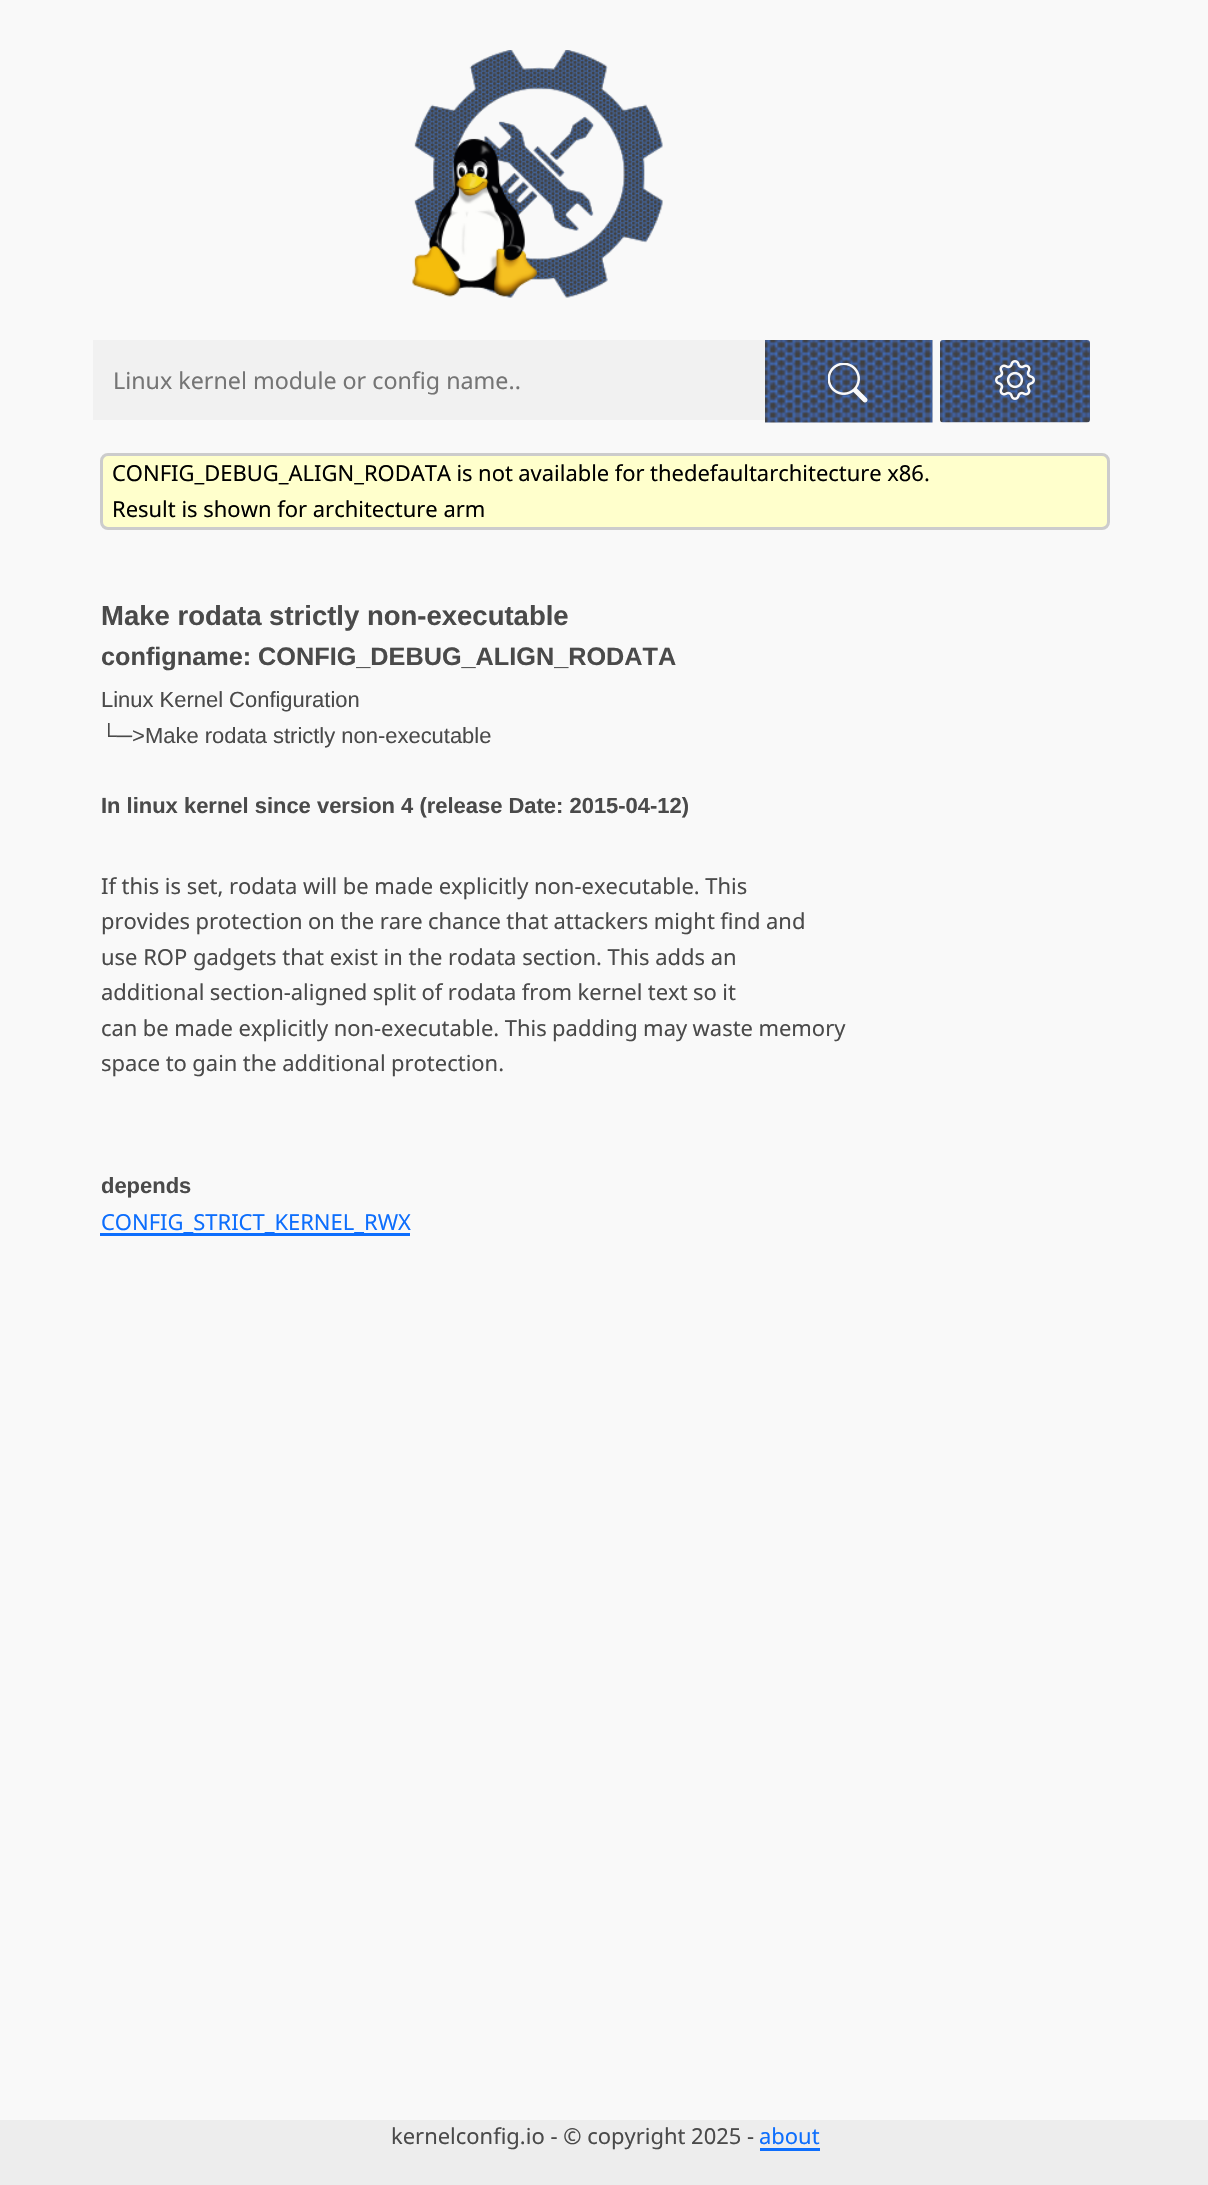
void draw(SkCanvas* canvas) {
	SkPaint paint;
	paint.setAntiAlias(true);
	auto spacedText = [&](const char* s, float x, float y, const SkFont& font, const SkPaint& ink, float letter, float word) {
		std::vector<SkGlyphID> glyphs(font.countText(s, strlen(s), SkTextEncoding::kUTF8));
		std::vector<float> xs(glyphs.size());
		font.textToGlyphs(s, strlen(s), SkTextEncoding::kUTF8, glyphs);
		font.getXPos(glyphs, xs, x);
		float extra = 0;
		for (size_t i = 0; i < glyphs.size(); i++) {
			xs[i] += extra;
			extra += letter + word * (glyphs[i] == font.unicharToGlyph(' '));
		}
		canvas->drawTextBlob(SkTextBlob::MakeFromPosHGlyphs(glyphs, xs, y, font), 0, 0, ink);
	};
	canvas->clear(0xfff9f9f9);
	canvas->drawImageRect(SkImages::DeferredFromEncodedData(SkData::MakeFromFileName("img1.png")), SkRect::MakeXYWH(412, 50, 251, 248), SkSamplingOptions());
	paint.setColor(0xfff1f1f1);
	canvas->drawRect(SkRect::MakeXYWH(93, 340, 672, 80), paint);
	SkFont f1(fontMgr->matchFamilyStyle("Noto Sans", SkFontStyle::Normal()), 23.25);
	f1.setSubpixel(true);
	paint.setColor(0xff757575);
	canvas->drawString("Linux kernel module or config name..", 113, 389, f1, paint);
	canvas->drawImageRect(SkImages::DeferredFromEncodedData(SkData::MakeFromFileName("img2.png")), SkRect::MakeXYWH(765, 340, 168, 83), SkSamplingOptions());
	canvas->drawImageRect(SkImages::DeferredFromEncodedData(SkData::MakeFromFileName("img3.png")), SkRect::MakeXYWH(828, 363, 40, 40), SkSamplingOptions());
	canvas->drawImageRect(SkImages::DeferredFromEncodedData(SkData::MakeFromFileName("img4.png")), SkRect::MakeXYWH(940, 340, 150, 83), SkSamplingOptions());
	canvas->drawImageRect(SkImages::DeferredFromEncodedData(SkData::MakeFromFileName("img5.png")), SkRect::MakeXYWH(995, 360, 40, 40), SkSamplingOptions());
	paint.setColor(0xffffffcc);
	canvas->drawRoundRect(SkRect::MakeXYWH(101.5, 454.5, 1007, 74), 6.5, 6.5, paint);
	paint.setStroke(true);
	paint.setStrokeWidth(3);
	paint.setColor(0xffcccccc);
	canvas->drawRoundRect(SkRect::MakeXYWH(101.5, 454.5, 1007, 74), 6.5, 6.5, paint);
	SkFont f2(fontMgr->matchFamilyStyle("Noto Sans", SkFontStyle::Normal()), 21.95);
	f2.setSubpixel(true);
	paint.setStroke(false);
	paint.setColor(0xff000000);
	spacedText("CONFIG_DEBUG_ALIGN_RODATA is not available for thedefaultarchitecture x86.", 112, 481, f2, paint, 0, -0.25);
	canvas->drawString("Result is shown for architecture arm", 112, 517, f2, paint);
	SkFont f3(fontMgr->matchFamilyStyle("Liberation Sans", SkFontStyle::Bold()), 27.5);
	f3.setSubpixel(true);
	paint.setColor(0xff4a4a4a);
	canvas->drawString("Make rodata strictly non-executable", 101, 625, f3, paint);
	SkFont f4(fontMgr->matchFamilyStyle("Liberation Sans", SkFontStyle::Bold()), 25.25);
	f4.setSubpixel(true);
	canvas->drawString("configname: CONFIG_DEBUG_ALIGN_RODATA", 101, 665, f4, paint);
	SkFont f5(fontMgr->matchFamilyStyle("Liberation Sans", SkFontStyle::Normal()), 21.95);
	f5.setSubpixel(true);
	canvas->drawString("Linux Kernel Configuration", 101, 707, f5, paint);
	canvas->drawString("└─>Make rodata strictly non-executable", 101, 743, f5, paint);
	SkFont f6(fontMgr->matchFamilyStyle("Liberation Sans", SkFontStyle::Bold()), 21.95);
	f6.setSubpixel(true);
	canvas->drawString("In linux kernel since version 4 (release Date: 2015-04-12)", 101, 813, f6, paint);
	spacedText("If this is set, rodata will be made explicitly non-executable. This", 101, 894, f2, paint, 0, -0.1);
	spacedText("provides protection on the rare chance that attackers might find and", 101, 929, f2, paint, 0, -0.25);
	canvas->drawString("use ROP gadgets that exist in the rodata section. This adds an", 101, 965, f2, paint);
	spacedText("additional section-aligned split of rodata from kernel text so it", 101, 1000, f2, paint, 0, -0.25);
	spacedText("can be made explicitly non-executable. This padding may waste memory", 101, 1036, f2, paint, 0, -0.25);
	spacedText("space to gain the additional protection.", 101, 1071, f2, paint, 0, -0.25);
	canvas->drawString("depends", 101, 1193, f6, paint);
	paint.setColor(0xff0d6efd);
	canvas->drawRect(SkRect::MakeXYWH(100, 1233, 310, 3), paint);
	canvas->drawString("CONFIG_STRICT_KERNEL_RWX", 101, 1230, f2, paint);
	paint.setColor(0xffededed);
	canvas->drawRect(SkRect::MakeXYWH(0, 2120, 1208, 65), paint);
	paint.setColor(0xff4a4a4a);
	canvas->drawString("kernelconfig.io - © copyright 2025 -", 391, 2144, f2, paint);
	paint.setColor(0xff0d6efd);
	canvas->drawString("about", 759, 2144, f2, paint);
	canvas->drawRect(SkRect::MakeXYWH(760, 2148, 60, 3), paint);
}
